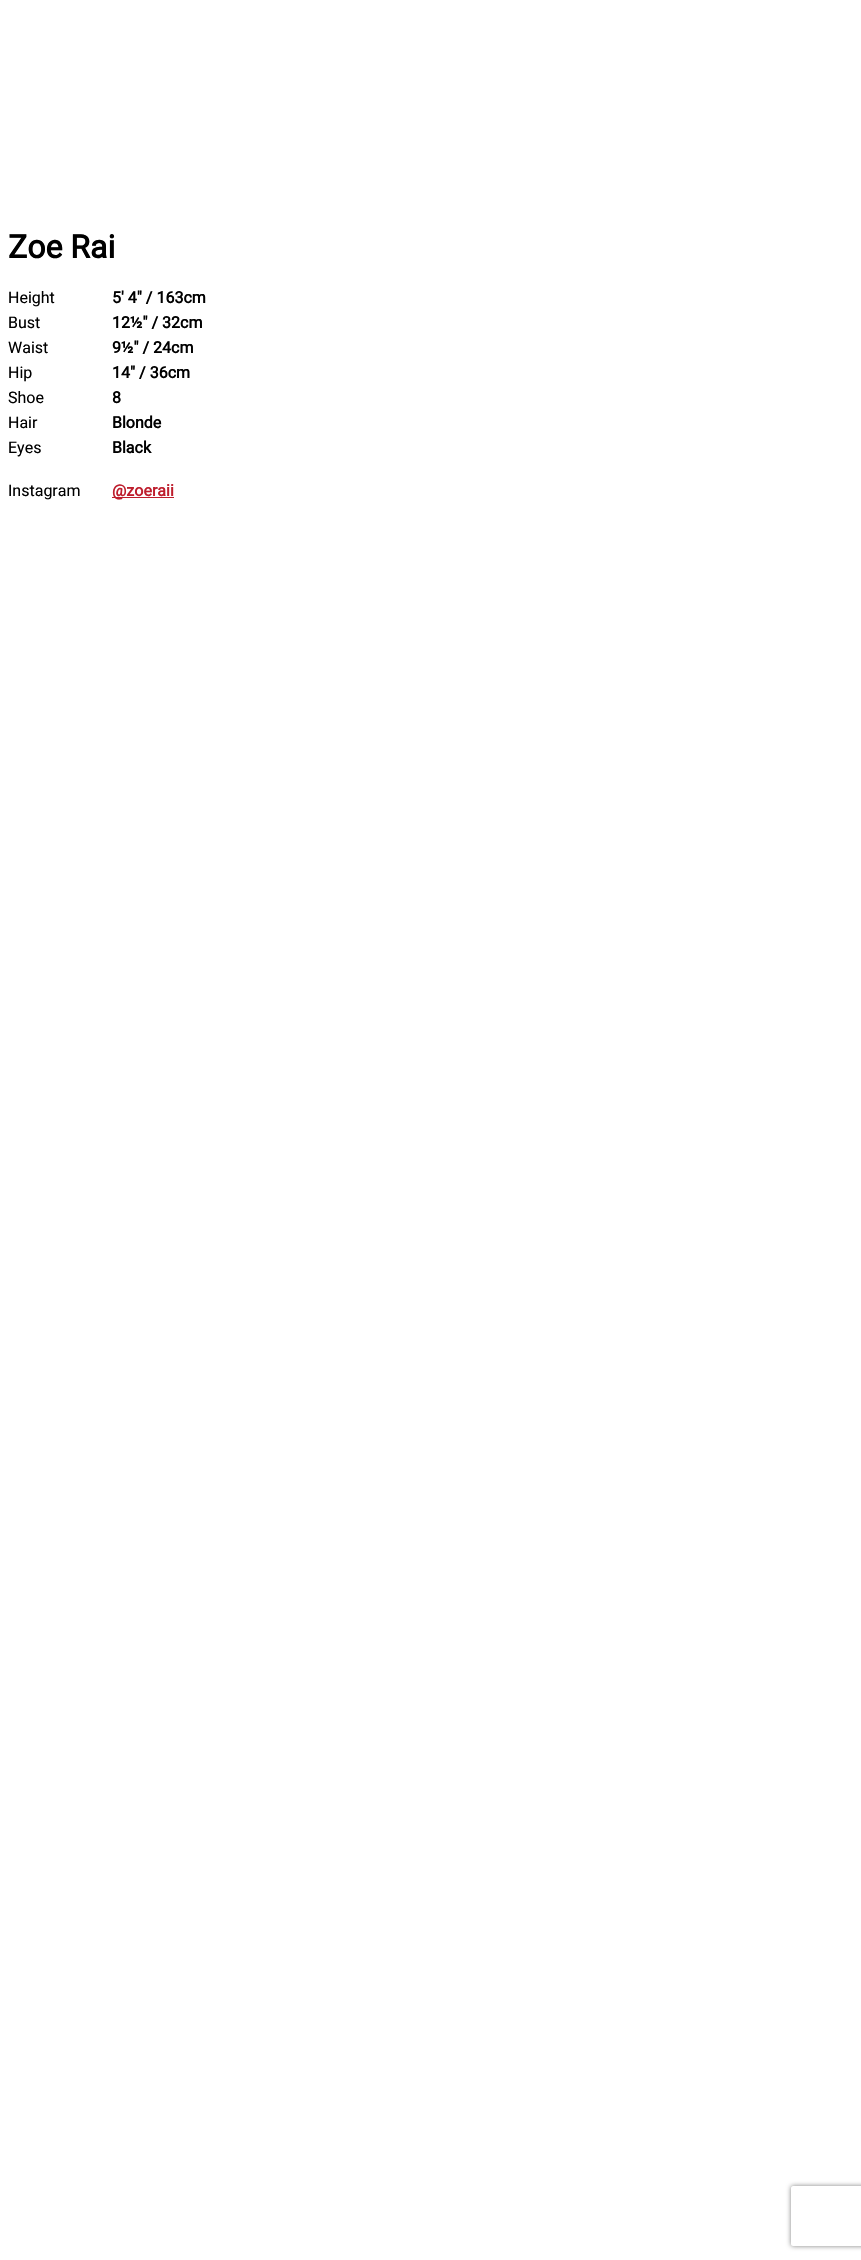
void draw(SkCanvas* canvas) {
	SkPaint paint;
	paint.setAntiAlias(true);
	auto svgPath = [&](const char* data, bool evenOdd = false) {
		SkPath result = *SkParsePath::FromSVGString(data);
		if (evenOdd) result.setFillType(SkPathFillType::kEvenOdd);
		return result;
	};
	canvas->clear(0xffffffff);
	SkFont f1(fontMgr->matchFamilyStyle("Roboto", SkFontStyle::Bold()), 32);
	f1.setSubpixel(true);
	paint.setColor(0xff000000);
	canvas->drawString("Zoe Rai", 8, 258, f1, paint);
	SkFont f2(fontMgr->matchFamilyStyle("Roboto", SkFontStyle::Normal()), 16);
	f2.setSubpixel(true);
	canvas->drawString("Height", 8, 303, f2, paint);
	SkFont f3(fontMgr->matchFamilyStyle("Roboto", SkFontStyle::Bold()), 16);
	f3.setSubpixel(true);
	canvas->drawString("5' 4\" / 163cm", 112, 303, f3, paint);
	canvas->drawString("Bust", 8, 328, f2, paint);
	canvas->drawString("12½\" / 32cm", 112, 328, f3, paint);
	canvas->drawString("Waist", 8, 353, f2, paint);
	canvas->drawString("9½\" / 24cm", 112, 353, f3, paint);
	canvas->drawString("Hip", 8, 378, f2, paint);
	canvas->drawString("14\" / 36cm", 112, 378, f3, paint);
	canvas->drawString("Shoe", 8, 403, f2, paint);
	canvas->drawString("8", 112, 403, f3, paint);
	canvas->drawString("Hair", 8, 428, f2, paint);
	canvas->drawString("Blonde", 112, 428, f3, paint);
	canvas->drawString("Eyes", 8, 453, f2, paint);
	canvas->drawString("Black", 112, 453, f3, paint);
	canvas->drawString("Instagram", 8, 496, f2, paint);
	paint.setColor(0xffbe1e2d);
	canvas->drawRect(SkRect::MakeXYWH(112, 497, 62, 1), paint);
	canvas->drawString("@zoeraii", 112, 496, f3, paint);
	canvas->save();
	canvas->clipPath(svgPath("M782 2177H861V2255H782ZM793 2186H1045C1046 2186 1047 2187 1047 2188V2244C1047 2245 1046 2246 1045 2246H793C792 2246 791 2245 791 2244V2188C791 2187 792 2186 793 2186Z", true), true);
	paint.setColor(0xff808080);
	paint.setMaskFilter(SkMaskFilter::MakeBlur(kNormal_SkBlurStyle, 2.5));
	canvas->drawRoundRect(SkRect::MakeXYWH(791, 2186, 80, 60), 2, 2, paint);
	paint.setMaskFilter(nullptr);
	canvas->restore();
}
